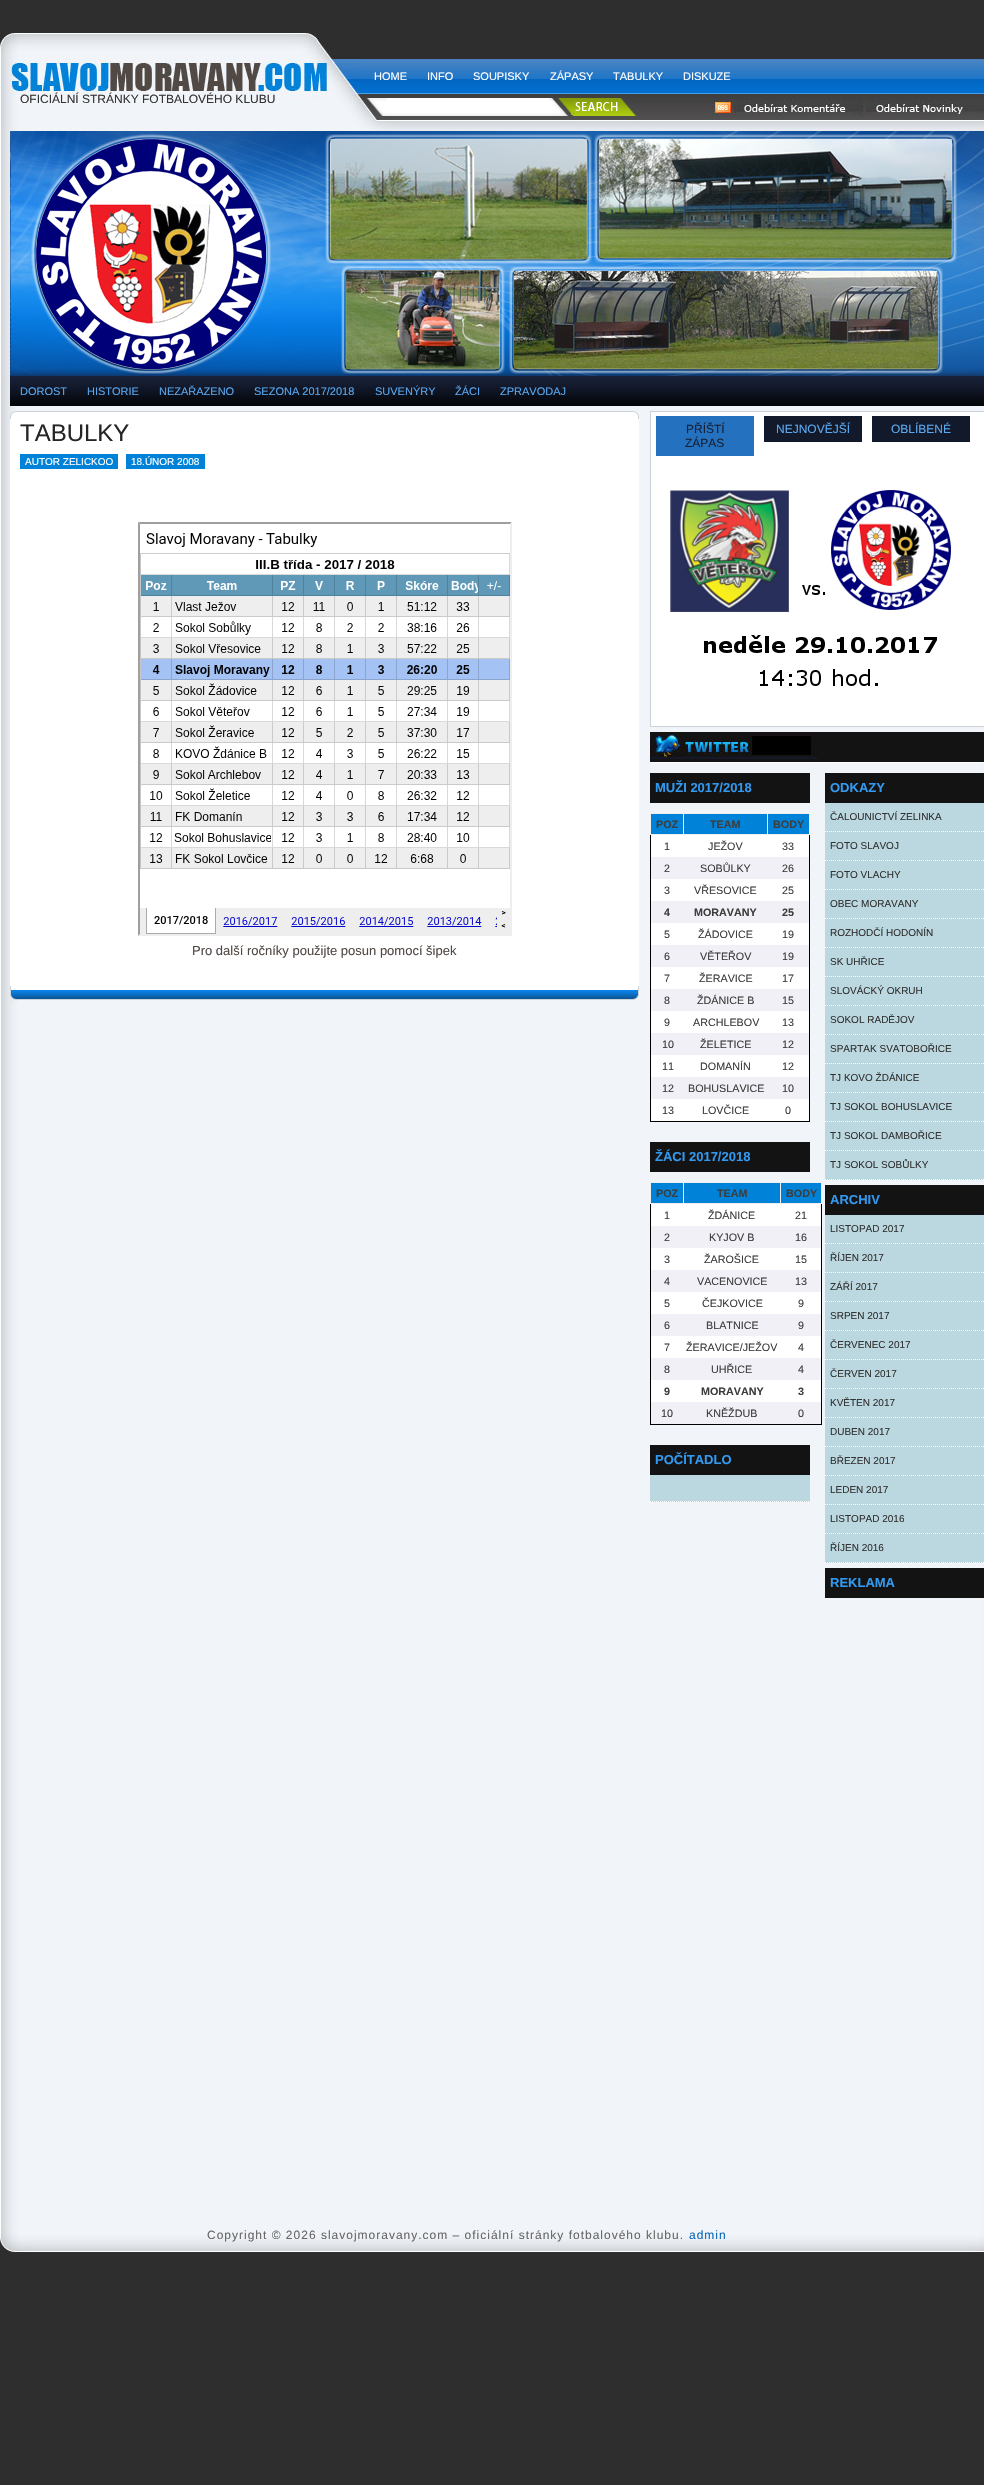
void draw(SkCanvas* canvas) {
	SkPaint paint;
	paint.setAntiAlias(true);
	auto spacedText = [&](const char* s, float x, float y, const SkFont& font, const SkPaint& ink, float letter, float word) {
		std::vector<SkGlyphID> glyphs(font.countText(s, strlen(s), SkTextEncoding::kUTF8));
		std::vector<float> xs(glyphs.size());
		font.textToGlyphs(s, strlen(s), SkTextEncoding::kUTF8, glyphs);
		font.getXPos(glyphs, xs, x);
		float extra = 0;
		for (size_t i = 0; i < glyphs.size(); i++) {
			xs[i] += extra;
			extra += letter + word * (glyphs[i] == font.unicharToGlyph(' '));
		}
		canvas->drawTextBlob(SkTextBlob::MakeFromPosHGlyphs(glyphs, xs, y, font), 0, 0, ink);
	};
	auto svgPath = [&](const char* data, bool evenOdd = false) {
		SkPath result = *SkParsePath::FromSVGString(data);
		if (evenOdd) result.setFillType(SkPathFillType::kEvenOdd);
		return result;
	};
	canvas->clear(0xff2e2e2e);
	canvas->drawImageRect(SkImages::DeferredFromEncodedData(SkData::MakeFromFileName("img1.png")), SkRect::MakeXYWH(359, 25, 625, 106), SkSamplingOptions());
	SkFont f1(fontMgr->matchFamilyStyle("Liberation Sans", SkFontStyle::Normal()), 11);
	f1.setSubpixel(true);
	paint.setColor(0xffffffff);
	canvas->drawString("HOME", 374, 80, f1, paint);
	canvas->drawString("INFO", 427, 80, f1, paint);
	canvas->drawString("SOUPISKY", 473, 80, f1, paint);
	canvas->drawString("ZÁPASY", 550, 80, f1, paint);
	canvas->drawString("TABULKY", 613, 80, f1, paint);
	canvas->drawString("DISKUZE", 683, 80, f1, paint);
	canvas->drawRect(SkRect::MakeXYWH(387, 98, 162, 3), paint);
	canvas->drawImageRect(SkImages::DeferredFromEncodedData(SkData::MakeFromFileName("img2.png")), SkRect::MakeXYWH(573, 99, 49, 15), SkSamplingOptions());
	canvas->drawImageRect(SkImages::DeferredFromEncodedData(SkData::MakeFromFileName("img3.png")), SkRect::MakeXYWH(709, 99, 154, 17), SkSamplingOptions());
	canvas->drawImageRect(SkImages::DeferredFromEncodedData(SkData::MakeFromFileName("img4.png")), SkRect::MakeXYWH(863, 99, 121, 16), SkSamplingOptions());
	canvas->drawImageRect(SkImages::DeferredFromEncodedData(SkData::MakeFromFileName("img5.png")), SkRect::MakeXYWH(0, 25, 359, 106), SkSamplingOptions());
	SkFont f2(fontMgr->matchFamilyStyle("Liberation Sans", SkFontStyle::Normal()), 12);
	f2.setSubpixel(true);
	paint.setColor(0xff333333);
	canvas->drawString("OFICIÁLNÍ STRÁNKY FOTBALOVÉHO KLUBU", 20, 103, f2, paint);
	canvas->drawImageRect(SkImages::DeferredFromEncodedData(SkData::MakeFromFileName("img6.png")), SkRect::MakeXYWH(0, 131, 984, 245), SkSamplingOptions());
	canvas->drawImageRect(SkImages::DeferredFromEncodedData(SkData::MakeFromFileName("img7.png")), SkRect::MakeXYWH(0, 376, 984, 30), SkSamplingOptions());
	paint.setColor(0xff59a8f1);
	canvas->drawString("DOROST", 20, 395, f1, paint);
	canvas->drawString("HISTORIE", 87, 395, f1, paint);
	canvas->drawString("NEZAŘAZENO", 159, 395, f1, paint);
	canvas->drawString("SEZONA 2017/2018", 254, 395, f1, paint);
	canvas->drawString("SUVENÝRY", 375, 395, f1, paint);
	canvas->drawString("ŽÁCI", 455, 395, f1, paint);
	canvas->drawString("ZPRAVODAJ", 500, 395, f1, paint);
	canvas->drawImageRect(SkImages::DeferredFromEncodedData(SkData::MakeFromFileName("img8.png")), SkRect::MakeXYWH(0, 406, 984, 1812), SkSamplingOptions());
	paint.setColor(0xffffffff);
	canvas->drawRect(SkRect::MakeXYWH(10, 419, 629, 567), paint);
	canvas->drawImageRect(SkImages::DeferredFromEncodedData(SkData::MakeFromFileName("img9.png")), SkRect::MakeXYWH(10, 411, 629, 8), SkSamplingOptions());
	SkFont f3(fontMgr->matchFamilyStyle("Liberation Sans", SkFontStyle::Normal()), 24);
	f3.setSubpixel(true);
	paint.setColor(0xff252525);
	canvas->drawString("TABULKY", 20, 441, f3, paint);
	paint.setColor(0xff0082d8);
	canvas->drawRect(SkRect::MakeXYWH(20, 454, 98, 15), paint);
	SkFont f4(fontMgr->matchFamilyStyle("Liberation Sans", SkFontStyle::Normal()), 10);
	f4.setSubpixel(true);
	paint.setColor(0xffffffff);
	canvas->drawString("AUTOR ZELICKOO", 25, 465, f4, paint);
	paint.setColor(0xff0082d8);
	canvas->drawRect(SkRect::MakeXYWH(126, 454, 79, 15), paint);
	paint.setColor(0xffffffff);
	canvas->drawString("18.ÚNOR 2008", 131, 465, f4, paint);
	paint.setColor(0xff9f9f9f);
	canvas->drawPath(svgPath("M138 522H512L510 524H140Z"), paint);
	paint.setColor(0xffeeeeee);
	canvas->drawPath(svgPath("M512 522V936L510 934V524Z"), paint);
	canvas->drawPath(svgPath("M512 936H138L140 934H510Z"), paint);
	paint.setColor(0xff9f9f9f);
	canvas->drawPath(svgPath("M138 936V522L140 524V934Z"), paint);
	canvas->drawImageRect(SkImages::DeferredFromEncodedData(SkData::MakeFromFileName("img10.png")), SkRect::MakeXYWH(140, 533, 370, 401), SkSamplingOptions());
	SkFont f5(fontMgr->matchFamilyStyle("Liberation Sans", SkFontStyle::Normal()), 13);
	f5.setSubpixel(true);
	paint.setColor(0xff504945);
	canvas->drawString("Pro další ročníky použijte posun pomocí šipek", 192, 955, f5, paint);
	canvas->drawImageRect(SkImages::DeferredFromEncodedData(SkData::MakeFromFileName("img11.png")), SkRect::MakeXYWH(10, 986, 629, 17), SkSamplingOptions());
	paint.setColor(0xffffffff);
	canvas->drawRect(SkRect::MakeXYWH(650.5, 411.5, 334, 315), paint);
	paint.setStroke(true);
	paint.setStrokeWidth(1);
	paint.setColor(0xffcbd2d8);
	canvas->drawRect(SkRect::MakeXYWH(650.5, 411.5, 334, 315), paint);
	paint.setStroke(false);
	paint.setColor(0xff2471bf);
	canvas->drawRect(SkRect::MakeXYWH(656, 416, 98, 40), paint);
	paint.setColor(0xff171f34);
	canvas->drawString("PŘÍŠTÍ", 686, 433, f2, paint);
	canvas->drawString("ZÁPAS", 685, 447, f2, paint);
	paint.setColor(0xff12192b);
	canvas->drawRect(SkRect::MakeXYWH(764, 416, 98, 26), paint);
	paint.setColor(0xff59a8f1);
	canvas->drawString("NEJNOVĚJŠÍ", 776, 433, f2, paint);
	paint.setColor(0xff12192b);
	canvas->drawRect(SkRect::MakeXYWH(872, 416, 98, 26), paint);
	paint.setColor(0xff59a8f1);
	canvas->drawString("OBLÍBENÉ", 891, 433, f2, paint);
	canvas->drawImageRect(SkImages::DeferredFromEncodedData(SkData::MakeFromFileName("img12.png")), SkRect::MakeXYWH(670, 490, 281, 196), SkSamplingOptions());
	paint.setColor(0xff141313);
	canvas->drawRect(SkRect::MakeXYWH(650, 732, 334, 30), paint);
	canvas->drawImageRect(SkImages::DeferredFromEncodedData(SkData::MakeFromFileName("img13.png")), SkRect::MakeXYWH(650, 732, 167, 27), SkSamplingOptions());
	paint.setColor(0xffffffff);
	canvas->drawRect(SkRect::MakeXYWH(650, 762, 334, 1), paint);
	paint.setColor(0xff141313);
	canvas->drawRect(SkRect::MakeXYWH(650, 773, 160, 30), paint);
	SkFont f6(fontMgr->matchFamilyStyle("Liberation Sans", SkFontStyle::Bold()), 13);
	f6.setSubpixel(true);
	paint.setColor(0xff3299f0);
	canvas->drawString("MUŽI 2017/2018", 655, 792, f6, paint);
	paint.setColor(0xffffffff);
	canvas->drawRect(SkRect::MakeXYWH(651, 835, 158, 286), paint);
	paint.setColor(0xff000000);
	canvas->drawRect(SkRect::MakeXYWH(809, 835, 1, 287), paint);
	canvas->drawRect(SkRect::MakeXYWH(650, 1121, 160, 1), paint);
	canvas->drawRect(SkRect::MakeXYWH(650, 835, 1, 287), paint);
	paint.setColor(0xff0082d8);
	canvas->drawRect(SkRect::MakeXYWH(651, 814, 32, 20), paint);
	paint.setColor(0xffefefef);
	canvas->drawRect(SkRect::MakeXYWH(767, 813, 43, 1), paint);
	canvas->drawRect(SkRect::MakeXYWH(809, 813, 1, 22), paint);
	canvas->drawRect(SkRect::MakeXYWH(767, 834, 43, 1), paint);
	canvas->drawRect(SkRect::MakeXYWH(767, 813, 1, 22), paint);
	canvas->drawRect(SkRect::MakeXYWH(683, 813, 85, 1), paint);
	canvas->drawRect(SkRect::MakeXYWH(683, 834, 85, 1), paint);
	canvas->drawRect(SkRect::MakeXYWH(683, 813, 1, 22), paint);
	canvas->drawRect(SkRect::MakeXYWH(650, 813, 34, 1), paint);
	canvas->drawRect(SkRect::MakeXYWH(650, 834, 34, 1), paint);
	canvas->drawRect(SkRect::MakeXYWH(650, 813, 1, 22), paint);
	SkFont f7(fontMgr->matchFamilyStyle("Liberation Sans", SkFontStyle::Bold()), 10.75);
	f7.setSubpixel(true);
	paint.setColor(0xff3d3d3d);
	canvas->drawString("POZ", 656, 828, f7, paint);
	paint.setColor(0xff0082d8);
	canvas->drawRect(SkRect::MakeXYWH(684, 814, 83, 20), paint);
	paint.setColor(0xff3d3d3d);
	canvas->drawString("TEAM", 710, 828, f7, paint);
	paint.setColor(0xff0082d8);
	canvas->drawRect(SkRect::MakeXYWH(768, 814, 41, 20), paint);
	paint.setColor(0xff3d3d3d);
	canvas->drawString("BODY", 773, 828, f7, paint);
	SkFont f8(fontMgr->matchFamilyStyle("Liberation Sans", SkFontStyle::Normal()), 10.75);
	f8.setSubpixel(true);
	canvas->drawString("1", 664, 850, f8, paint);
	canvas->drawString("JEŽOV", 708, 850, f8, paint);
	canvas->drawString("33", 782, 850, f8, paint);
	paint.setColor(0xfff0f0f6);
	canvas->drawRect(SkRect::MakeXYWH(651, 857, 158, 22), paint);
	paint.setColor(0xff3d3d3d);
	canvas->drawString("2", 664, 872, f8, paint);
	canvas->drawString("SOBŮLKY", 700, 872, f8, paint);
	canvas->drawString("26", 782, 872, f8, paint);
	canvas->drawString("3", 664, 894, f8, paint);
	canvas->drawString("VŘESOVICE", 694, 894, f8, paint);
	canvas->drawString("25", 782, 894, f8, paint);
	paint.setColor(0xfff0f0f6);
	canvas->drawRect(SkRect::MakeXYWH(651, 901, 158, 22), paint);
	paint.setColor(0xff3d3d3d);
	canvas->drawString("4", 664, 916, f7, paint);
	canvas->drawString("MORAVANY", 694, 916, f7, paint);
	canvas->drawString("25", 782, 916, f7, paint);
	canvas->drawString("5", 664, 938, f8, paint);
	canvas->drawString("ŽÁDOVICE", 698, 938, f8, paint);
	canvas->drawString("19", 782, 938, f8, paint);
	paint.setColor(0xfff0f0f6);
	canvas->drawRect(SkRect::MakeXYWH(651, 945, 158, 22), paint);
	paint.setColor(0xff3d3d3d);
	canvas->drawString("6", 664, 960, f8, paint);
	canvas->drawString("VĚTEŘOV", 700, 960, f8, paint);
	canvas->drawString("19", 782, 960, f8, paint);
	canvas->drawString("7", 664, 982, f8, paint);
	canvas->drawString("ŽERAVICE", 699, 982, f8, paint);
	canvas->drawString("17", 782, 982, f8, paint);
	paint.setColor(0xfff0f0f6);
	canvas->drawRect(SkRect::MakeXYWH(651, 989, 158, 22), paint);
	paint.setColor(0xff3d3d3d);
	canvas->drawString("8", 664, 1004, f8, paint);
	canvas->drawString("ŽDÁNICE B", 697, 1004, f8, paint);
	canvas->drawString("15", 782, 1004, f8, paint);
	canvas->drawString("9", 664, 1026, f8, paint);
	canvas->drawString("ARCHLEBOV", 693, 1026, f8, paint);
	canvas->drawString("13", 782, 1026, f8, paint);
	paint.setColor(0xfff0f0f6);
	canvas->drawRect(SkRect::MakeXYWH(651, 1033, 158, 22), paint);
	paint.setColor(0xff3d3d3d);
	canvas->drawString("10", 662, 1048, f8, paint);
	canvas->drawString("ŽELETICE", 700, 1048, f8, paint);
	canvas->drawString("12", 782, 1048, f8, paint);
	canvas->drawString("11", 662, 1070, f8, paint);
	canvas->drawString("DOMANÍN", 700, 1070, f8, paint);
	canvas->drawString("12", 782, 1070, f8, paint);
	paint.setColor(0xfff0f0f6);
	canvas->drawRect(SkRect::MakeXYWH(651, 1077, 158, 22), paint);
	paint.setColor(0xff3d3d3d);
	canvas->drawString("12", 662, 1092, f8, paint);
	canvas->drawString("BOHUSLAVICE", 688, 1092, f8, paint);
	canvas->drawString("10", 782, 1092, f8, paint);
	canvas->drawString("13", 662, 1114, f8, paint);
	canvas->drawString("LOVČICE", 702, 1114, f8, paint);
	canvas->drawString("0", 785, 1114, f8, paint);
	paint.setColor(0xff141313);
	canvas->drawRect(SkRect::MakeXYWH(650, 1142, 160, 30), paint);
	paint.setColor(0xff3299f0);
	canvas->drawString("ŽÁCI 2017/2018", 655, 1161, f6, paint);
	paint.setColor(0xffffffff);
	canvas->drawRect(SkRect::MakeXYWH(651, 1204, 170, 198), paint);
	paint.setColor(0xff000000);
	canvas->drawRect(SkRect::MakeXYWH(821, 1204, 1, 221), paint);
	canvas->drawRect(SkRect::MakeXYWH(650, 1424, 172, 1), paint);
	canvas->drawRect(SkRect::MakeXYWH(650, 1204, 1, 221), paint);
	paint.setColor(0xff0082d8);
	canvas->drawRect(SkRect::MakeXYWH(651, 1183, 32, 20), paint);
	paint.setColor(0xffefefef);
	canvas->drawRect(SkRect::MakeXYWH(780, 1182, 42, 1), paint);
	canvas->drawRect(SkRect::MakeXYWH(821, 1182, 1, 22), paint);
	canvas->drawRect(SkRect::MakeXYWH(780, 1203, 42, 1), paint);
	canvas->drawRect(SkRect::MakeXYWH(780, 1182, 1, 22), paint);
	canvas->drawRect(SkRect::MakeXYWH(683, 1182, 98, 1), paint);
	canvas->drawRect(SkRect::MakeXYWH(683, 1203, 98, 1), paint);
	canvas->drawRect(SkRect::MakeXYWH(683, 1182, 1, 22), paint);
	canvas->drawRect(SkRect::MakeXYWH(650, 1182, 34, 1), paint);
	canvas->drawRect(SkRect::MakeXYWH(650, 1203, 34, 1), paint);
	canvas->drawRect(SkRect::MakeXYWH(650, 1182, 1, 22), paint);
	paint.setColor(0xff3d3d3d);
	canvas->drawString("POZ", 656, 1197, f7, paint);
	paint.setColor(0xff0082d8);
	canvas->drawRect(SkRect::MakeXYWH(684, 1183, 96, 20), paint);
	paint.setColor(0xff3d3d3d);
	canvas->drawString("TEAM", 717, 1197, f7, paint);
	paint.setColor(0xff0082d8);
	canvas->drawRect(SkRect::MakeXYWH(781, 1183, 40, 20), paint);
	paint.setColor(0xff3d3d3d);
	canvas->drawString("BODY", 786, 1197, f7, paint);
	canvas->drawString("1", 664, 1219, f8, paint);
	canvas->drawString("ŽDÁNICE", 708, 1219, f8, paint);
	canvas->drawString("21", 795, 1219, f8, paint);
	paint.setColor(0xfff0f0f6);
	canvas->drawRect(SkRect::MakeXYWH(651, 1226, 170, 22), paint);
	paint.setColor(0xff3d3d3d);
	canvas->drawString("2", 664, 1241, f8, paint);
	canvas->drawString("KYJOV B", 709, 1241, f8, paint);
	canvas->drawString("16", 795, 1241, f8, paint);
	canvas->drawString("3", 664, 1263, f8, paint);
	canvas->drawString("ŽAROŠICE", 704, 1263, f8, paint);
	canvas->drawString("15", 795, 1263, f8, paint);
	paint.setColor(0xfff0f0f6);
	canvas->drawRect(SkRect::MakeXYWH(651, 1270, 170, 22), paint);
	paint.setColor(0xff3d3d3d);
	canvas->drawString("4", 664, 1285, f8, paint);
	canvas->drawString("VACENOVICE", 697, 1285, f8, paint);
	canvas->drawString("13", 795, 1285, f8, paint);
	canvas->drawString("5", 664, 1307, f8, paint);
	canvas->drawString("ČEJKOVICE", 702, 1307, f8, paint);
	canvas->drawString("9", 798, 1307, f8, paint);
	paint.setColor(0xfff0f0f6);
	canvas->drawRect(SkRect::MakeXYWH(651, 1314, 170, 22), paint);
	paint.setColor(0xff3d3d3d);
	canvas->drawString("6", 664, 1329, f8, paint);
	canvas->drawString("BLATNICE", 706, 1329, f8, paint);
	canvas->drawString("9", 798, 1329, f8, paint);
	canvas->drawString("7", 664, 1351, f8, paint);
	canvas->drawString("ŽERAVICE/JEŽOV", 686, 1351, f8, paint);
	canvas->drawString("4", 798, 1351, f8, paint);
	paint.setColor(0xfff0f0f6);
	canvas->drawRect(SkRect::MakeXYWH(651, 1358, 170, 22), paint);
	paint.setColor(0xff3d3d3d);
	canvas->drawString("8", 664, 1373, f8, paint);
	canvas->drawString("UHŘICE", 711, 1373, f8, paint);
	canvas->drawString("4", 798, 1373, f8, paint);
	canvas->drawString("9", 664, 1395, f7, paint);
	canvas->drawString("MORAVANY", 701, 1395, f7, paint);
	canvas->drawString("3", 798, 1395, f7, paint);
	paint.setColor(0xfff0f0f6);
	canvas->drawRect(SkRect::MakeXYWH(651, 1402, 170, 22), paint);
	paint.setColor(0xff3d3d3d);
	canvas->drawString("10", 661, 1417, f8, paint);
	canvas->drawString("KNĚŽDUB", 706, 1417, f8, paint);
	canvas->drawString("0", 798, 1417, f8, paint);
	paint.setColor(0xff141313);
	canvas->drawRect(SkRect::MakeXYWH(650, 1445, 160, 30), paint);
	paint.setColor(0xff3299f0);
	canvas->drawString("POČÍTADLO", 655, 1464, f6, paint);
	paint.setColor(0xffbbd7e0);
	canvas->drawRect(SkRect::MakeXYWH(650, 1475, 160, 27), paint);
	paint.setStroke(true);
	paint.setColor(0xffffffff);
	paint.setPathEffect(SkDashPathEffect::Make({{1, 1}}, 0));
	canvas->drawPath(svgPath("M650 1501.5H810"), paint);
	paint.setPathEffect(nullptr);
	paint.setStroke(false);
	paint.setColor(0xff141313);
	canvas->drawRect(SkRect::MakeXYWH(825, 773, 159, 30), paint);
	paint.setColor(0xff3299f0);
	canvas->drawString("ODKAZY", 830, 792, f6, paint);
	paint.setColor(0xffbbd7e0);
	canvas->drawRect(SkRect::MakeXYWH(825, 803, 159, 377), paint);
	paint.setStroke(true);
	paint.setColor(0xffffffff);
	paint.setPathEffect(SkDashPathEffect::Make({{1, 1}}, 0));
	canvas->drawPath(svgPath("M825 831.5H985"), paint);
	paint.setPathEffect(nullptr);
	paint.setStroke(false);
	paint.setColor(0xff333333);
	canvas->drawString("ČALOUNICTVÍ ZELINKA", 830, 820, f4, paint);
	paint.setStroke(true);
	paint.setColor(0xffffffff);
	paint.setPathEffect(SkDashPathEffect::Make({{1, 1}}, 0));
	canvas->drawPath(svgPath("M825 860.5H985"), paint);
	paint.setPathEffect(nullptr);
	paint.setStroke(false);
	paint.setColor(0xff333333);
	canvas->drawString("FOTO SLAVOJ", 830, 849, f4, paint);
	paint.setStroke(true);
	paint.setColor(0xffffffff);
	paint.setPathEffect(SkDashPathEffect::Make({{1, 1}}, 0));
	canvas->drawPath(svgPath("M825 889.5H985"), paint);
	paint.setPathEffect(nullptr);
	paint.setStroke(false);
	paint.setColor(0xff333333);
	canvas->drawString("FOTO VLACHY", 830, 878, f4, paint);
	paint.setStroke(true);
	paint.setColor(0xffffffff);
	paint.setPathEffect(SkDashPathEffect::Make({{1, 1}}, 0));
	canvas->drawPath(svgPath("M825 918.5H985"), paint);
	paint.setPathEffect(nullptr);
	paint.setStroke(false);
	paint.setColor(0xff333333);
	canvas->drawString("OBEC MORAVANY", 830, 907, f4, paint);
	paint.setStroke(true);
	paint.setColor(0xffffffff);
	paint.setPathEffect(SkDashPathEffect::Make({{1, 1}}, 0));
	canvas->drawPath(svgPath("M825 947.5H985"), paint);
	paint.setPathEffect(nullptr);
	paint.setStroke(false);
	paint.setColor(0xff333333);
	canvas->drawString("ROZHODČÍ HODONÍN", 830, 936, f4, paint);
	paint.setStroke(true);
	paint.setColor(0xffffffff);
	paint.setPathEffect(SkDashPathEffect::Make({{1, 1}}, 0));
	canvas->drawPath(svgPath("M825 976.5H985"), paint);
	paint.setPathEffect(nullptr);
	paint.setStroke(false);
	paint.setColor(0xff333333);
	canvas->drawString("SK UHŘICE", 830, 965, f4, paint);
	paint.setStroke(true);
	paint.setColor(0xffffffff);
	paint.setPathEffect(SkDashPathEffect::Make({{1, 1}}, 0));
	canvas->drawPath(svgPath("M825 1005.5H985"), paint);
	paint.setPathEffect(nullptr);
	paint.setStroke(false);
	paint.setColor(0xff333333);
	canvas->drawString("SLOVÁCKÝ OKRUH", 830, 994, f4, paint);
	paint.setStroke(true);
	paint.setColor(0xffffffff);
	paint.setPathEffect(SkDashPathEffect::Make({{1, 1}}, 0));
	canvas->drawPath(svgPath("M825 1034.5H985"), paint);
	paint.setPathEffect(nullptr);
	paint.setStroke(false);
	paint.setColor(0xff333333);
	canvas->drawString("SOKOL RADĚJOV", 830, 1023, f4, paint);
	paint.setStroke(true);
	paint.setColor(0xffffffff);
	paint.setPathEffect(SkDashPathEffect::Make({{1, 1}}, 0));
	canvas->drawPath(svgPath("M825 1063.5H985"), paint);
	paint.setPathEffect(nullptr);
	paint.setStroke(false);
	paint.setColor(0xff333333);
	canvas->drawString("SPARTAK SVATOBOŘICE", 830, 1052, f4, paint);
	paint.setStroke(true);
	paint.setColor(0xffffffff);
	paint.setPathEffect(SkDashPathEffect::Make({{1, 1}}, 0));
	canvas->drawPath(svgPath("M825 1092.5H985"), paint);
	paint.setPathEffect(nullptr);
	paint.setStroke(false);
	paint.setColor(0xff333333);
	canvas->drawString("TJ KOVO ŽDÁNICE", 830, 1081, f4, paint);
	paint.setStroke(true);
	paint.setColor(0xffffffff);
	paint.setPathEffect(SkDashPathEffect::Make({{1, 1}}, 0));
	canvas->drawPath(svgPath("M825 1121.5H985"), paint);
	paint.setPathEffect(nullptr);
	paint.setStroke(false);
	paint.setColor(0xff333333);
	canvas->drawString("TJ SOKOL BOHUSLAVICE", 830, 1110, f4, paint);
	paint.setStroke(true);
	paint.setColor(0xffffffff);
	paint.setPathEffect(SkDashPathEffect::Make({{1, 1}}, 0));
	canvas->drawPath(svgPath("M825 1150.5H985"), paint);
	paint.setPathEffect(nullptr);
	paint.setStroke(false);
	paint.setColor(0xff333333);
	canvas->drawString("TJ SOKOL DAMBOŘICE", 830, 1139, f4, paint);
	paint.setStroke(true);
	paint.setColor(0xffffffff);
	paint.setPathEffect(SkDashPathEffect::Make({{1, 1}}, 0));
	canvas->drawPath(svgPath("M825 1179.5H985"), paint);
	paint.setPathEffect(nullptr);
	paint.setStroke(false);
	paint.setColor(0xff333333);
	canvas->drawString("TJ SOKOL SOBŮLKY", 830, 1168, f4, paint);
	paint.setColor(0xff141313);
	canvas->drawRect(SkRect::MakeXYWH(825, 1185, 159, 30), paint);
	paint.setColor(0xff3299f0);
	canvas->drawString("ARCHIV", 830, 1204, f6, paint);
	paint.setColor(0xffbbd7e0);
	canvas->drawRect(SkRect::MakeXYWH(825, 1215, 159, 348), paint);
	paint.setStroke(true);
	paint.setColor(0xffffffff);
	paint.setPathEffect(SkDashPathEffect::Make({{1, 1}}, 0));
	canvas->drawPath(svgPath("M825 1243.5H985"), paint);
	paint.setPathEffect(nullptr);
	paint.setStroke(false);
	paint.setColor(0xff333333);
	canvas->drawString("LISTOPAD 2017", 830, 1232, f4, paint);
	paint.setStroke(true);
	paint.setColor(0xffffffff);
	paint.setPathEffect(SkDashPathEffect::Make({{1, 1}}, 0));
	canvas->drawPath(svgPath("M825 1272.5H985"), paint);
	paint.setPathEffect(nullptr);
	paint.setStroke(false);
	paint.setColor(0xff333333);
	canvas->drawString("ŘÍJEN 2017", 830, 1261, f4, paint);
	paint.setStroke(true);
	paint.setColor(0xffffffff);
	paint.setPathEffect(SkDashPathEffect::Make({{1, 1}}, 0));
	canvas->drawPath(svgPath("M825 1301.5H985"), paint);
	paint.setPathEffect(nullptr);
	paint.setStroke(false);
	paint.setColor(0xff333333);
	canvas->drawString("ZÁŘÍ 2017", 830, 1290, f4, paint);
	paint.setStroke(true);
	paint.setColor(0xffffffff);
	paint.setPathEffect(SkDashPathEffect::Make({{1, 1}}, 0));
	canvas->drawPath(svgPath("M825 1330.5H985"), paint);
	paint.setPathEffect(nullptr);
	paint.setStroke(false);
	paint.setColor(0xff333333);
	canvas->drawString("SRPEN 2017", 830, 1319, f4, paint);
	paint.setStroke(true);
	paint.setColor(0xffffffff);
	paint.setPathEffect(SkDashPathEffect::Make({{1, 1}}, 0));
	canvas->drawPath(svgPath("M825 1359.5H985"), paint);
	paint.setPathEffect(nullptr);
	paint.setStroke(false);
	paint.setColor(0xff333333);
	canvas->drawString("ČERVENEC 2017", 830, 1348, f4, paint);
	paint.setStroke(true);
	paint.setColor(0xffffffff);
	paint.setPathEffect(SkDashPathEffect::Make({{1, 1}}, 0));
	canvas->drawPath(svgPath("M825 1388.5H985"), paint);
	paint.setPathEffect(nullptr);
	paint.setStroke(false);
	paint.setColor(0xff333333);
	canvas->drawString("ČERVEN 2017", 830, 1377, f4, paint);
	paint.setStroke(true);
	paint.setColor(0xffffffff);
	paint.setPathEffect(SkDashPathEffect::Make({{1, 1}}, 0));
	canvas->drawPath(svgPath("M825 1417.5H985"), paint);
	paint.setPathEffect(nullptr);
	paint.setStroke(false);
	paint.setColor(0xff333333);
	canvas->drawString("KVĚTEN 2017", 830, 1406, f4, paint);
	paint.setStroke(true);
	paint.setColor(0xffffffff);
	paint.setPathEffect(SkDashPathEffect::Make({{1, 1}}, 0));
	canvas->drawPath(svgPath("M825 1446.5H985"), paint);
	paint.setPathEffect(nullptr);
	paint.setStroke(false);
	paint.setColor(0xff333333);
	canvas->drawString("DUBEN 2017", 830, 1435, f4, paint);
	paint.setStroke(true);
	paint.setColor(0xffffffff);
	paint.setPathEffect(SkDashPathEffect::Make({{1, 1}}, 0));
	canvas->drawPath(svgPath("M825 1475.5H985"), paint);
	paint.setPathEffect(nullptr);
	paint.setStroke(false);
	paint.setColor(0xff333333);
	canvas->drawString("BŘEZEN 2017", 830, 1464, f4, paint);
	paint.setStroke(true);
	paint.setColor(0xffffffff);
	paint.setPathEffect(SkDashPathEffect::Make({{1, 1}}, 0));
	canvas->drawPath(svgPath("M825 1504.5H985"), paint);
	paint.setPathEffect(nullptr);
	paint.setStroke(false);
	paint.setColor(0xff333333);
	canvas->drawString("LEDEN 2017", 830, 1493, f4, paint);
	paint.setStroke(true);
	paint.setColor(0xffffffff);
	paint.setPathEffect(SkDashPathEffect::Make({{1, 1}}, 0));
	canvas->drawPath(svgPath("M825 1533.5H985"), paint);
	paint.setPathEffect(nullptr);
	paint.setStroke(false);
	paint.setColor(0xff333333);
	canvas->drawString("LISTOPAD 2016", 830, 1522, f4, paint);
	paint.setStroke(true);
	paint.setColor(0xffffffff);
	paint.setPathEffect(SkDashPathEffect::Make({{1, 1}}, 0));
	canvas->drawPath(svgPath("M825 1562.5H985"), paint);
	paint.setPathEffect(nullptr);
	paint.setStroke(false);
	paint.setColor(0xff333333);
	canvas->drawString("ŘÍJEN 2016", 830, 1551, f4, paint);
	paint.setColor(0xff141313);
	canvas->drawRect(SkRect::MakeXYWH(825, 1568, 159, 30), paint);
	paint.setColor(0xff3299f0);
	canvas->drawString("REKLAMA", 830, 1587, f6, paint);
	canvas->drawImageRect(SkImages::DeferredFromEncodedData(SkData::MakeFromFileName("img14.png")), SkRect::MakeXYWH(0, 2218, 984, 70), SkSamplingOptions());
	paint.setColor(0xff666666);
	spacedText("Copyright © 2026 slavojmoravany.com – oficiální stránky fotbalového klubu.", 207, 2239, f2, paint, 1, 0);
	paint.setColor(0xff0b68b6);
	spacedText("admin", 689, 2239, f2, paint, 1, 0);
}
